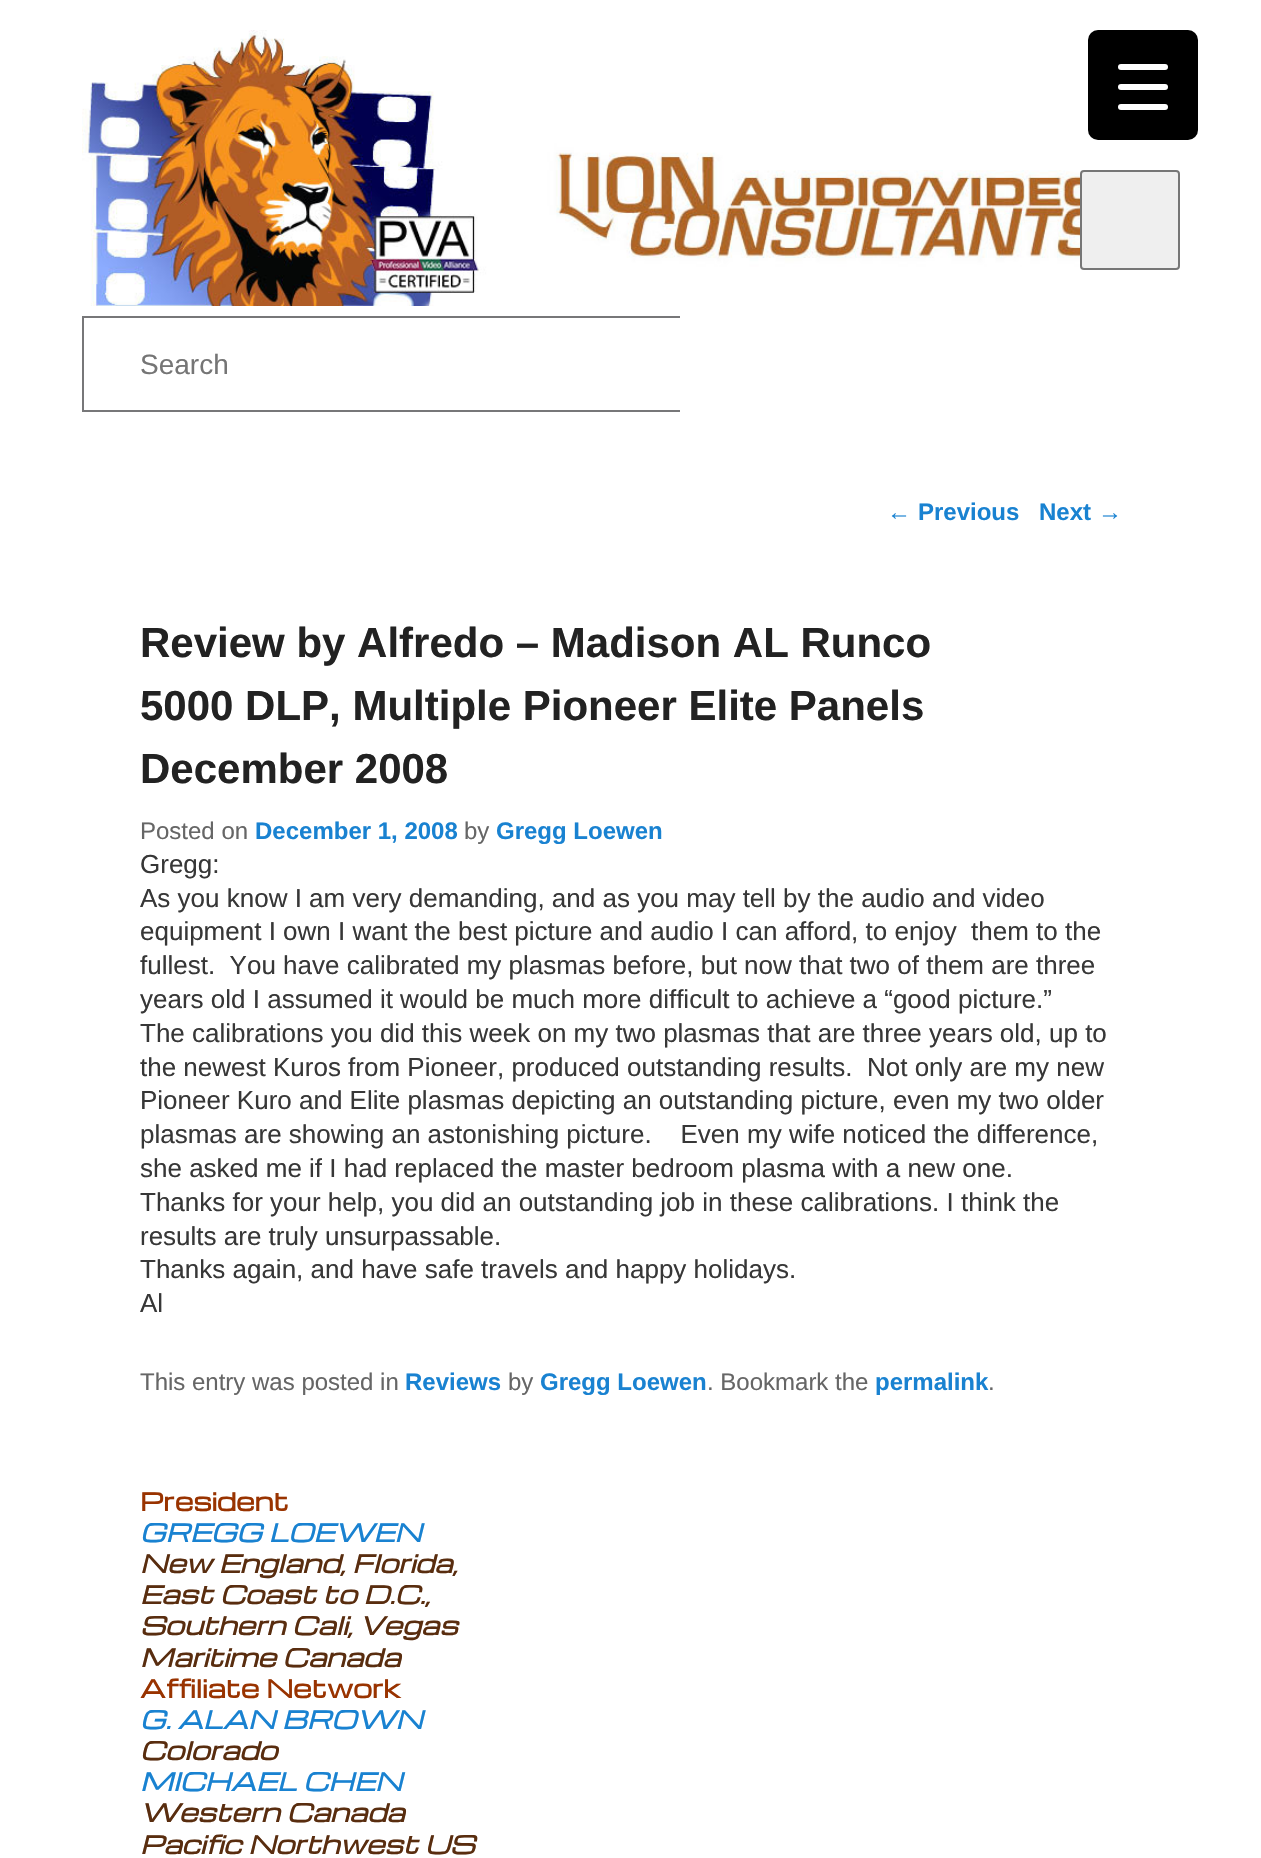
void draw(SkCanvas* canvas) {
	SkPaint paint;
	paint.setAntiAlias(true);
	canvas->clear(0xffffffff);
	canvas->drawImageRect(SkImages::DeferredFromEncodedData(SkData::MakeFromFileName("img1.png")), SkRect::MakeXYWH(82, 30, 1028, 276), SkSamplingOptions());
	paint.setColor(0xff000000);
	canvas->drawRoundRect(SkRect::MakeXYWH(1088, 30, 110, 110), 10, 10, paint);
	paint.setColor(0xffffffff);
	canvas->drawRoundRect(SkRect::MakeXYWH(1118, 84, 50, 6), 3, 3, paint);
	canvas->drawRoundRect(SkRect::MakeXYWH(1118, 64, 50, 6), 3, 3, paint);
	canvas->drawRoundRect(SkRect::MakeXYWH(1118, 104, 50, 6), 3, 3, paint);
	paint.setColor(0xffefefef);
	canvas->drawRoundRect(SkRect::MakeXYWH(1081, 171, 98, 98), 3, 3, paint);
	paint.setStroke(true);
	paint.setStrokeWidth(2);
	paint.setColor(0xff767676);
	canvas->drawRoundRect(SkRect::MakeXYWH(1081, 171, 98, 98), 3, 3, paint);
	paint.setStroke(false);
	paint.setColor(0xff777779);
	canvas->drawRect(SkRect::MakeXYWH(82, 316, 598, 2), paint);
	canvas->drawRect(SkRect::MakeXYWH(82, 410, 598, 2), paint);
	canvas->drawRect(SkRect::MakeXYWH(82, 316, 2, 96), paint);
	SkFont f1(fontMgr->matchFamilyStyle("Liberation Sans", SkFontStyle::Normal()), 28);
	f1.setSubpixel(true);
	paint.setColor(0xff757575);
	canvas->drawString("Search", 140, 374, f1, paint);
	SkFont f2(fontMgr->matchFamilyStyle("Liberation Sans", SkFontStyle::Normal()), 24);
	f2.setSubpixel(true);
	paint.setColor(0xff1982d1);
	canvas->drawString("←", 887, 520, f2, paint);
	SkFont f3(fontMgr->matchFamilyStyle("Liberation Sans", SkFontStyle::Bold()), 24);
	f3.setSubpixel(true);
	canvas->drawString("Previous", 918, 520, f3, paint);
	canvas->drawString("Next", 1039, 520, f3, paint);
	canvas->drawString("→", 1098, 520, f2, paint);
	SkFont f4(fontMgr->matchFamilyStyle("Liberation Sans", SkFontStyle::Bold()), 42);
	f4.setSubpixel(true);
	paint.setColor(0xff222222);
	canvas->drawString("Review by Alfredo – Madison AL Runco", 140, 657, f4, paint);
	canvas->drawString("5000 DLP, Multiple Pioneer Elite Panels", 140, 720, f4, paint);
	canvas->drawString("December 2008", 140, 783, f4, paint);
	paint.setColor(0xff666666);
	canvas->drawString("Posted on", 140, 839, f2, paint);
	paint.setColor(0xff1982d1);
	canvas->drawString("December 1, 2008", 255, 839, f3, paint);
	paint.setColor(0xff666666);
	canvas->drawString("by", 464, 839, f2, paint);
	paint.setColor(0xff1982d1);
	canvas->drawString("Gregg Loewen", 496, 839, f3, paint);
	SkFont f5(fontMgr->matchFamilyStyle("Liberation Sans", SkFontStyle::Normal()), 26);
	f5.setSubpixel(true);
	paint.setColor(0xff373737);
	canvas->drawString("Gregg:", 140, 873, f5, paint);
	canvas->drawString("As you know I am very demanding, and as you may tell by the audio and video", 140, 907, f5, paint);
	canvas->drawString("equipment I own I want the best picture and audio I can afford, to enjoy  them to the", 140, 940, f5, paint);
	canvas->drawString("fullest.  You have calibrated my plasmas before, but now that two of them are three", 140, 974, f5, paint);
	canvas->drawString("years old I assumed it would be much more difficult to achieve a “good picture.”", 140, 1008, f5, paint);
	canvas->drawString("The calibrations you did this week on my two plasmas that are three years old, up to", 140, 1042, f5, paint);
	canvas->drawString("the newest Kuros from Pioneer, produced outstanding results.  Not only are my new", 140, 1076, f5, paint);
	canvas->drawString("Pioneer Kuro and Elite plasmas depicting an outstanding picture, even my two older", 140, 1109, f5, paint);
	canvas->drawString("plasmas are showing an astonishing picture.    Even my wife noticed the difference,", 140, 1143, f5, paint);
	canvas->drawString("she asked me if I had replaced the master bedroom plasma with a new one.", 140, 1177, f5, paint);
	canvas->drawString("Thanks for your help, you did an outstanding job in these calibrations. I think the", 140, 1211, f5, paint);
	canvas->drawString("results are truly unsurpassable.", 140, 1245, f5, paint);
	canvas->drawString("Thanks again, and have safe travels and happy holidays.", 140, 1278, f5, paint);
	canvas->drawString("Al", 140, 1312, f5, paint);
	paint.setColor(0xff666666);
	canvas->drawString("This entry was posted in", 140, 1390, f2, paint);
	paint.setColor(0xff1982d1);
	canvas->drawString("Reviews", 405, 1390, f3, paint);
	paint.setColor(0xff666666);
	canvas->drawString("by", 508, 1390, f2, paint);
	paint.setColor(0xff1982d1);
	canvas->drawString("Gregg Loewen", 540, 1390, f3, paint);
	paint.setColor(0xff666666);
	canvas->drawString(". Bookmark the", 707, 1390, f2, paint);
	paint.setColor(0xff1982d1);
	canvas->drawString("permalink", 875, 1390, f3, paint);
	paint.setColor(0xff666666);
	canvas->drawString(".", 988, 1390, f2, paint);
	SkFont f6(fontMgr->matchFamilyStyle("Michroma", SkFontStyle::Bold()), 24);
	f6.setSubpixel(true);
	paint.setColor(0xff993300);
	canvas->drawString("President", 140, 1511, f6, paint);
	SkFont f7(fontMgr->matchFamilyStyle("Michroma", SkFontStyle::BoldItalic()), 24);
	f7.setSubpixel(true);
	paint.setColor(0xff1982d1);
	canvas->drawString("GREGG LOEWEN", 140, 1542, f7, paint);
	paint.setColor(0xff592d0f);
	canvas->drawString("New England, Florida,", 140, 1573, f7, paint);
	canvas->drawString("East Coast to D.C.,", 140, 1604, f7, paint);
	canvas->drawString("Southern Cali, Vegas", 140, 1635, f7, paint);
	canvas->drawString("Maritime Canada", 140, 1667, f7, paint);
	paint.setColor(0xff993300);
	canvas->drawString("Affiliate Network", 140, 1698, f6, paint);
	paint.setColor(0xff1982d1);
	canvas->drawString("G. ALAN BROWN", 140, 1729, f7, paint);
	paint.setColor(0xff592d0f);
	canvas->drawString("Colorado", 140, 1760, f7, paint);
	paint.setColor(0xff1982d1);
	canvas->drawString("MICHAEL CHEN", 140, 1791, f7, paint);
	paint.setColor(0xff592d0f);
	canvas->drawString("Western Canada", 140, 1822, f7, paint);
	canvas->drawString("Pacific Northwest US", 140, 1854, f7, paint);
}
